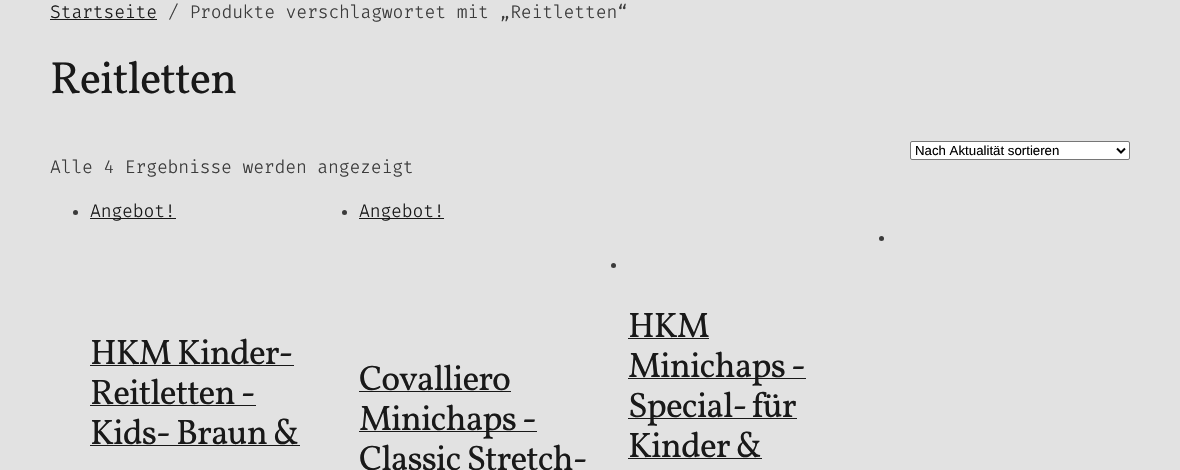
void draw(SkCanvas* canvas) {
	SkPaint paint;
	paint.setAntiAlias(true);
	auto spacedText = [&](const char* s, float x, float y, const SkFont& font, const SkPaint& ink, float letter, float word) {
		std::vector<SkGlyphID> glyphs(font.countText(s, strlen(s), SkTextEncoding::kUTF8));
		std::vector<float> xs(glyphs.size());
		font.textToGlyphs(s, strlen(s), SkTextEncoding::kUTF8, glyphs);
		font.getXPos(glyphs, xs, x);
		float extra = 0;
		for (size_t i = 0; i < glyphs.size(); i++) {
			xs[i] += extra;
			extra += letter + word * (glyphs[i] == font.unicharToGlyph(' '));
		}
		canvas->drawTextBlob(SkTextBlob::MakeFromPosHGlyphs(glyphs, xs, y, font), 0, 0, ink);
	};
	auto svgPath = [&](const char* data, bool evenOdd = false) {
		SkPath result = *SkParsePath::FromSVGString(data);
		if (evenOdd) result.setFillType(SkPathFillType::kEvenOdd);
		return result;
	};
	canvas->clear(0xffe2e2e2);
	SkFont f1(fontMgr->matchFamilyStyle("Fira Code", SkFontStyle(300, SkFontStyle::kNormal_Width, SkFontStyle::kUpright_Slant)), 17.7);
	f1.setSubpixel(true);
	paint.setColor(0xff191919);
	spacedText("Startseite", 50, 18, f1, paint, -0.2, 0);
	canvas->drawRect(SkRect::MakeXYWH(50, 19, 107, 1), paint);
	paint.setColor(0xff3b3b3b);
	spacedText("/ Produkte verschlagwortet mit „Reitletten“", 168, 18, f1, paint, -0.2, 0);
	SkFont f2(fontMgr->matchFamilyStyle("Vollkorn", SkFontStyle::Normal()), 45);
	f2.setSubpixel(true);
	paint.setColor(0xff191919);
	spacedText("Reitletten", 50, 93, f2, paint, -1, 0);
	paint.setColor(0xffffffff);
	canvas->drawRoundRect(SkRect::MakeXYWH(910.5, 141.5, 219, 18), 1.5, 1.5, paint);
	paint.setStroke(true);
	paint.setStrokeWidth(1);
	paint.setColor(0xff767676);
	canvas->drawRoundRect(SkRect::MakeXYWH(910.5, 141.5, 219, 18), 1.5, 1.5, paint);
	paint.setStrokeWidth(2);
	paint.setColor(0xff000000);
	canvas->drawPath(svgPath("M1117 148.5L1121 152.5L1125 148.5"), paint);
	SkFont f3(fontMgr->matchFamilyStyle("Liberation Sans", SkFontStyle::Normal()), 13.25);
	f3.setSubpixel(true);
	paint.setStroke(false);
	canvas->drawString("Nach Aktualität sortieren", 915, 155, f3, paint);
	paint.setColor(0xff3b3b3b);
	spacedText("Alle 4 Ergebnisse werden angezeigt", 50, 173, f1, paint, -0.2, 0);
	canvas->drawCircle(75.5, 212.5, 2.5, paint);
	paint.setColor(0xff191919);
	canvas->drawRect(SkRect::MakeXYWH(90, 218, 86, 1), paint);
	spacedText("Angebot!", 90, 217, f1, paint, -0.2, 0);
	SkFont f4(fontMgr->matchFamilyStyle("Vollkorn", SkFontStyle::Normal()), 35.5);
	f4.setSubpixel(true);
	spacedText("HKM Kinder-", 90, 364, f4, paint, -1, 0);
	canvas->drawRect(SkRect::MakeXYWH(90, 365, 204, 1), paint);
	spacedText("Reitletten -", 90, 404, f4, paint, -1, 0);
	canvas->drawRect(SkRect::MakeXYWH(90, 405, 166, 1), paint);
	spacedText("Kids- Braun &", 90, 444, f4, paint, -1, 0);
	canvas->drawRect(SkRect::MakeXYWH(90, 445, 210, 1), paint);
	paint.setColor(0xff3b3b3b);
	canvas->drawCircle(344.5, 212.5, 2.5, paint);
	paint.setColor(0xff191919);
	canvas->drawRect(SkRect::MakeXYWH(359, 218, 85, 1), paint);
	spacedText("Angebot!", 359, 217, f1, paint, -0.2, 0);
	spacedText("Covalliero", 359, 390, f4, paint, -1, 0);
	canvas->drawRect(SkRect::MakeXYWH(359, 391, 152, 1), paint);
	canvas->drawRect(SkRect::MakeXYWH(359, 431, 178, 1), paint);
	spacedText("Minichaps -", 359, 430, f4, paint, -1, 0);
	spacedText("Classic Stretch-", 359, 470, f4, paint, -1, 0);
	paint.setColor(0xff3b3b3b);
	canvas->drawCircle(881.5, 238.5, 2.5, paint);
	canvas->drawCircle(613.5, 265.5, 2.5, paint);
	paint.setColor(0xff191919);
	spacedText("HKM", 628, 337, f4, paint, -1, 0);
	canvas->drawRect(SkRect::MakeXYWH(628, 338, 81, 1), paint);
	canvas->drawRect(SkRect::MakeXYWH(628, 378, 178, 1), paint);
	spacedText("Minichaps -", 628, 377, f4, paint, -1, 0);
	canvas->drawRect(SkRect::MakeXYWH(628, 418, 169, 1), paint);
	spacedText("Special- für", 628, 417, f4, paint, -1, -1);
	spacedText("Kinder &", 628, 457, f4, paint, -1, 0);
	canvas->drawRect(SkRect::MakeXYWH(628, 458, 134, 1), paint);
}
